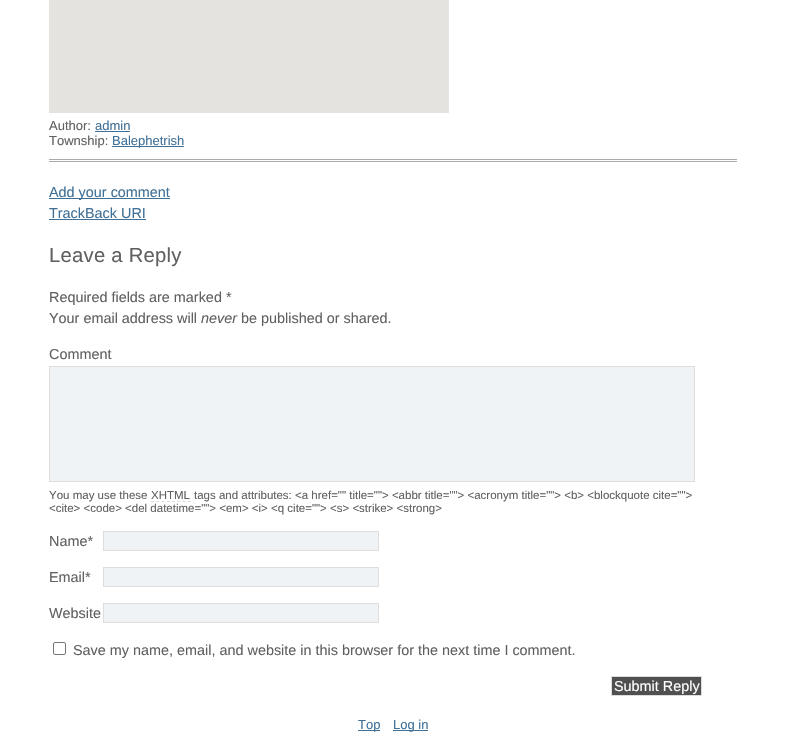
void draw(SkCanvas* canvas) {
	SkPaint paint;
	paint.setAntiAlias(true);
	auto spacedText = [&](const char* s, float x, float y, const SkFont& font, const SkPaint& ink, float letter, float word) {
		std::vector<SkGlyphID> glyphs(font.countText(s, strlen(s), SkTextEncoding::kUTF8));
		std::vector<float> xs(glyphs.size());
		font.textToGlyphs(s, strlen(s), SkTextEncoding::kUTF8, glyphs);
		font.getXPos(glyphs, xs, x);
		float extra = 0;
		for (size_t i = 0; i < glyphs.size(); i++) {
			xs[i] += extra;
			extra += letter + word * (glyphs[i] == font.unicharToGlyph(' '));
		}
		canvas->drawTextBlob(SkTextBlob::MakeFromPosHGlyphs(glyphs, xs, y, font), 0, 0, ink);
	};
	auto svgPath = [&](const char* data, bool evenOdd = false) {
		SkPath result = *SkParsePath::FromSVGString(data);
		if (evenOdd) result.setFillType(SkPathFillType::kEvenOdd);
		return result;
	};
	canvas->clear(0xffffffff);
	paint.setColor(0xffe5e3df);
	canvas->drawRect(SkRect::MakeXYWH(49, 0, 400, 113), paint);
	paint.setColor(0xffaaaaaa);
	canvas->drawRect(SkRect::MakeXYWH(49, 159, 688, 1), paint);
	canvas->drawRect(SkRect::MakeXYWH(49, 161, 688, 1), paint);
	SkFont f1(fontMgr->matchFamilyStyle("Liberation Sans", SkFontStyle::Normal()), 13);
	f1.setSubpixel(true);
	paint.setColor(0xff606060);
	canvas->drawString("Author:", 49, 130, f1, paint);
	paint.setColor(0xff407096);
	canvas->drawString("admin", 95, 130, f1, paint);
	canvas->drawRect(SkRect::MakeXYWH(95, 131, 35, 1), paint);
	paint.setColor(0xff606060);
	canvas->drawString("Township:", 49, 145, f1, paint);
	paint.setColor(0xff407096);
	canvas->drawRect(SkRect::MakeXYWH(112, 146, 72, 1), paint);
	canvas->drawString("Balephetrish", 112, 145, f1, paint);
	canvas->drawRect(SkRect::MakeXYWH(49, 198, 121, 1), paint);
	SkFont f2(fontMgr->matchFamilyStyle("Liberation Sans", SkFontStyle::Normal()), 14.4);
	f2.setSubpixel(true);
	canvas->drawString("Add your comment", 49, 197, f2, paint);
	canvas->drawString("TrackBack", 49, 218, f2, paint);
	canvas->drawString("URI", 121, 218, f2, paint);
	canvas->drawRect(SkRect::MakeXYWH(49, 219, 97, 1), paint);
	SkFont f3(fontMgr->matchFamilyStyle("Liberation Sans", SkFontStyle::Normal()), 20.25);
	f3.setSubpixel(true);
	paint.setColor(0xff606060);
	spacedText("Leave a Reply", 49, 262, f3, paint, 0.25, 0);
	canvas->drawString("Required fields are marked *", 49, 302, f2, paint);
	canvas->drawString("Your email address will", 49, 323, f2, paint);
	SkFont f4(fontMgr->matchFamilyStyle("Liberation Sans", SkFontStyle::Italic()), 14.4);
	f4.setSubpixel(true);
	canvas->drawString("never", 201, 323, f4, paint);
	canvas->drawString("be published or shared.", 241, 323, f2, paint);
	canvas->drawString("Comment", 49, 359, f2, paint);
	paint.setColor(0xfff0f3f5);
	canvas->drawRect(SkRect::MakeXYWH(49.5, 366.5, 645, 115), paint);
	paint.setStroke(true);
	paint.setStrokeWidth(1);
	paint.setColor(0xffdddddd);
	canvas->drawRect(SkRect::MakeXYWH(49.5, 366.5, 645, 115), paint);
	SkFont f5(fontMgr->matchFamilyStyle("Liberation Sans", SkFontStyle::Normal()), 11.5);
	f5.setSubpixel(true);
	paint.setStroke(false);
	paint.setColor(0xff606060);
	canvas->drawString("You may use these", 49, 499, f5, paint);
	canvas->drawString("XHTML", 151, 499, f5, paint);
	paint.setStroke(true);
	paint.setColor(0xffdddddd);
	paint.setPathEffect(SkDashPathEffect::Make({{3, 2.29f}}, 0));
	canvas->drawPath(svgPath("M151 501.5H191"), paint);
	paint.setPathEffect(nullptr);
	paint.setStroke(false);
	paint.setColor(0xff606060);
	canvas->drawString("tags and attributes: <a href=\"\" title=\"\"> <abbr title=\"\"> <acronym title=\"\"> <b> <blockquote cite=\"\">", 194, 499, f5, paint);
	canvas->drawString("<cite> <code> <del datetime=\"\"> <em> <i> <q cite=\"\"> <s> <strike> <strong>", 49, 512, f5, paint);
	canvas->drawString("Name*", 49, 546, f2, paint);
	paint.setColor(0xfff0f3f5);
	canvas->drawRect(SkRect::MakeXYWH(103.5, 531.5, 275, 19), paint);
	paint.setStroke(true);
	paint.setColor(0xffdddddd);
	canvas->drawRect(SkRect::MakeXYWH(103.5, 531.5, 275, 19), paint);
	paint.setStroke(false);
	paint.setColor(0xff606060);
	canvas->drawString("Email*", 49, 582, f2, paint);
	paint.setColor(0xfff0f3f5);
	canvas->drawRect(SkRect::MakeXYWH(103.5, 567.5, 275, 19), paint);
	paint.setStroke(true);
	paint.setColor(0xffdddddd);
	canvas->drawRect(SkRect::MakeXYWH(103.5, 567.5, 275, 19), paint);
	paint.setStroke(false);
	paint.setColor(0xff606060);
	canvas->drawString("Website", 49, 618, f2, paint);
	paint.setColor(0xfff0f3f5);
	canvas->drawRect(SkRect::MakeXYWH(103.5, 603.5, 275, 19), paint);
	paint.setStroke(true);
	paint.setColor(0xffdddddd);
	canvas->drawRect(SkRect::MakeXYWH(103.5, 603.5, 275, 19), paint);
	paint.setColor(0xff767676);
	canvas->drawRoundRect(SkRect::MakeXYWH(53.5, 642.5, 12, 12), 1.5, 1.5, paint);
	paint.setStroke(false);
	paint.setColor(0xff606060);
	canvas->drawString("Save my name, email, and website in this browser for the next time I comment.", 73, 655, f2, paint);
	paint.setColor(0xff505050);
	canvas->drawRect(SkRect::MakeXYWH(611.5, 676.5, 90, 19), paint);
	paint.setStroke(true);
	paint.setColor(0xffdddddd);
	canvas->drawRect(SkRect::MakeXYWH(611.5, 676.5, 90, 19), paint);
	paint.setStroke(false);
	paint.setColor(0xffffffff);
	canvas->drawString("Submit Reply", 614, 691, f2, paint);
	paint.setColor(0xff407096);
	canvas->drawRect(SkRect::MakeXYWH(358, 730, 22, 1), paint);
	canvas->drawString("Top", 358, 729, f1, paint);
	canvas->drawRect(SkRect::MakeXYWH(393, 730, 35, 1), paint);
	canvas->drawString("Log in", 393, 729, f1, paint);
}
